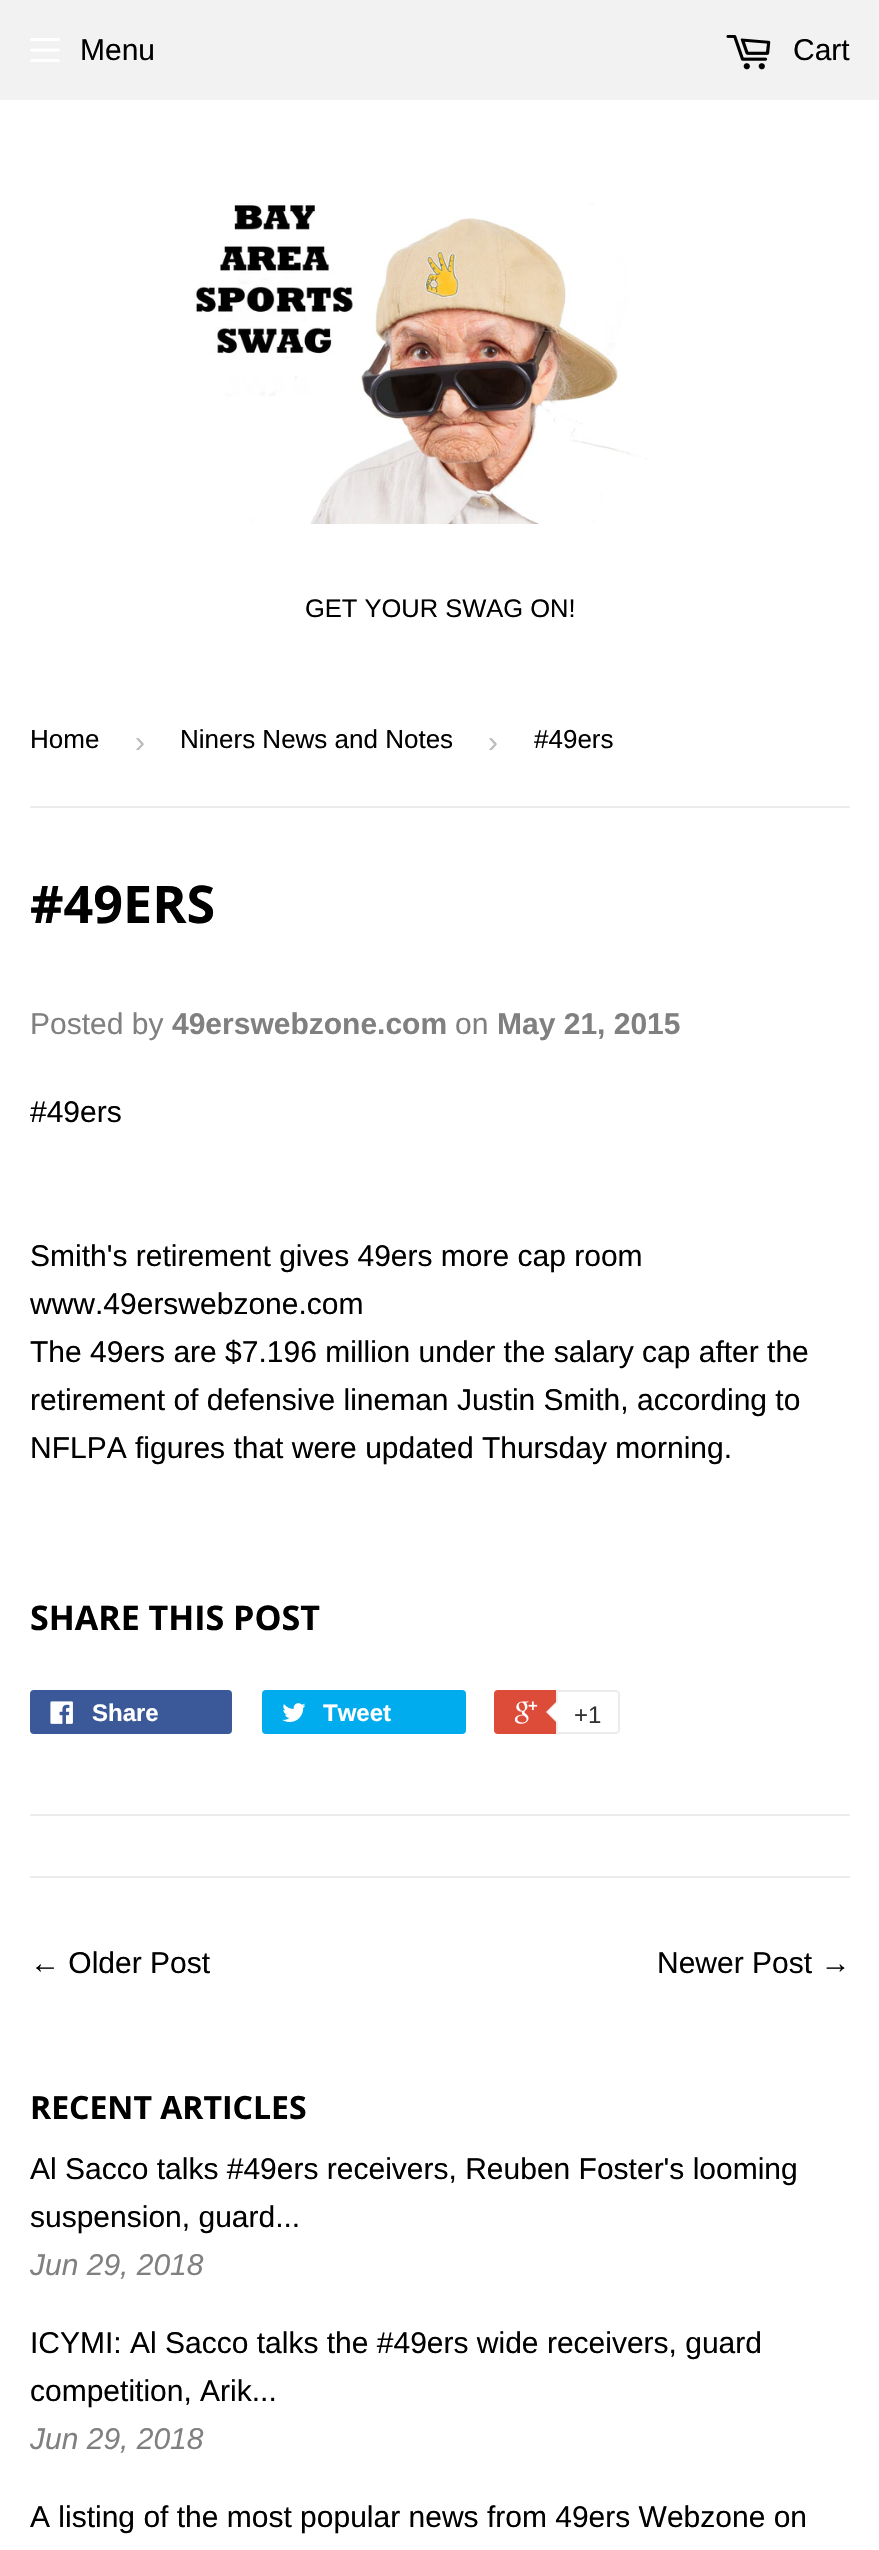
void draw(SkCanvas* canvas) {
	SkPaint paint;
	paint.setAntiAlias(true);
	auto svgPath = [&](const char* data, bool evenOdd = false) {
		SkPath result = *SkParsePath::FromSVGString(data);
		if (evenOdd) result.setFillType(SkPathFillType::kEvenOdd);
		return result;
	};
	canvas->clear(0xffffffff);
	paint.setColor(0xfff2f2f2);
	canvas->drawRect(SkRect::MakeXYWH(0, 0, 879, 100), paint);
	canvas->drawImageRect(SkImages::DeferredFromEncodedData(SkData::MakeFromFileName("img1.png")), SkRect::MakeXYWH(30, 38, 30, 24), SkSamplingOptions());
	SkFont f1(fontMgr->matchFamilyStyle("Liberation Sans", SkFontStyle::Normal()), 30);
	f1.setSubpixel(true);
	paint.setColor(0xff000000);
	canvas->drawString("Menu", 80, 60, f1, paint);
	canvas->drawImageRect(SkImages::DeferredFromEncodedData(SkData::MakeFromFileName("img2.png")), SkRect::MakeXYWH(726, 35, 45, 35), SkSamplingOptions());
	canvas->drawString("Cart", 793, 60, f1, paint);
	canvas->drawImageRect(SkImages::DeferredFromEncodedData(SkData::MakeFromFileName("img3.png")), SkRect::MakeXYWH(194, 203, 453, 321), SkSamplingOptions());
	SkFont f2(fontMgr->matchFamilyStyle("Liberation Sans", SkFontStyle::Normal()), 25.5);
	f2.setSubpixel(true);
	canvas->drawString("GET YOUR SWAG ON!", 305, 617, f2, paint);
	paint.setColor(0xffececec);
	canvas->drawRect(SkRect::MakeXYWH(30, 806, 820, 2), paint);
	SkFont f3(fontMgr->matchFamilyStyle("Liberation Sans", SkFontStyle::Normal()), 26);
	f3.setSubpixel(true);
	paint.setColor(0xff000000);
	canvas->drawString("Home", 30, 748, f3, paint);
	paint.setColor(0xffbbbbbb);
	canvas->drawString("›", 135, 752, f1, paint);
	paint.setColor(0xff000000);
	canvas->drawString("Niners News and Notes", 180, 748, f3, paint);
	paint.setColor(0xffbbbbbb);
	canvas->drawString("›", 488, 752, f1, paint);
	paint.setColor(0xff000000);
	canvas->drawString("#49ers", 534, 748, f3, paint);
	SkFont f4(fontMgr->matchFamilyStyle("Open Sans", SkFontStyle::Bold()), 52);
	f4.setSubpixel(true);
	canvas->drawString("#49ERS", 30, 923, f4, paint);
	paint.setColor(0xff808080);
	canvas->drawString("Posted by", 30, 1034, f1, paint);
	SkFont f5(fontMgr->matchFamilyStyle("Liberation Sans", SkFontStyle::Bold()), 30);
	f5.setSubpixel(true);
	canvas->drawString("49erswebzone.com", 172, 1034, f5, paint);
	canvas->drawString("on", 455, 1034, f1, paint);
	canvas->drawString("May 21, 2015", 497, 1034, f5, paint);
	paint.setColor(0xff000000);
	canvas->drawString("#49ers", 30, 1122, f1, paint);
	canvas->drawString("Smith's retirement gives 49ers more cap room", 30, 1266, f1, paint);
	canvas->drawString("www.49erswebzone.com", 30, 1314, f1, paint);
	canvas->drawString("The 49ers are $7.196 million under the salary cap after the", 30, 1362, f1, paint);
	canvas->drawString("retirement of defensive lineman Justin Smith, according to", 30, 1410, f1, paint);
	canvas->drawString("NFLPA figures that were updated Thursday morning.", 30, 1458, f1, paint);
	SkFont f6(fontMgr->matchFamilyStyle("Open Sans", SkFontStyle::Bold()), 34);
	f6.setSubpixel(true);
	canvas->drawString("SHARE THIS POST", 30, 1630, f6, paint);
	paint.setColor(0xff3b5998);
	canvas->drawRoundRect(SkRect::MakeXYWH(30, 1690, 202, 44), 4, 4, paint);
	canvas->drawImageRect(SkImages::DeferredFromEncodedData(SkData::MakeFromFileName("img4.png")), SkRect::MakeXYWH(50, 1701, 23, 23), SkSamplingOptions());
	SkFont f7(fontMgr->matchFamilyStyle("Liberation Sans", SkFontStyle::Bold()), 24);
	f7.setSubpixel(true);
	paint.setColor(0xffffffff);
	canvas->drawString("Share", 92, 1721, f7, paint);
	paint.setColor(0xff00aced);
	canvas->drawRoundRect(SkRect::MakeXYWH(262, 1690, 204, 44), 4, 4, paint);
	canvas->drawImageRect(SkImages::DeferredFromEncodedData(SkData::MakeFromFileName("img5.png")), SkRect::MakeXYWH(282, 1703, 24, 19), SkSamplingOptions());
	paint.setColor(0xffffffff);
	canvas->drawString("Tweet", 323, 1721, f7, paint);
	paint.setColor(0xffdd4b39);
	canvas->drawRoundRect(SkRect::MakeXYWH(494, 1690, 122, 44), 4, 4, paint);
	canvas->drawImageRect(SkImages::DeferredFromEncodedData(SkData::MakeFromFileName("img6.png")), SkRect::MakeXYWH(514, 1701, 24, 23), SkSamplingOptions());
	paint.setColor(0xffffffff);
	canvas->drawPath(svgPath("M557 1691H616C617.5 1691 619 1692.5 619 1694V1730C619 1731.5 617.5 1733 616 1733H557Z"), paint);
	paint.setStroke(true);
	paint.setStrokeWidth(2);
	paint.setColor(0xffececec);
	canvas->drawPath(svgPath("M557 1691H616C617.5 1691 619 1692.5 619 1694V1730C619 1731.5 617.5 1733 616 1733H557Z"), paint);
	paint.setStroke(false);
	canvas->drawPath(svgPath("M558 1700V1724L546 1712Z"), paint);
	paint.setColor(0xffffffff);
	canvas->drawPath(svgPath("M560 1700V1724L548 1712Z"), paint);
	SkFont f8(fontMgr->matchFamilyStyle("Liberation Sans", SkFontStyle::Normal()), 24);
	f8.setSubpixel(true);
	paint.setColor(0xff333333);
	canvas->drawString("+1", 574, 1723, f8, paint);
	paint.setColor(0xffececec);
	canvas->drawRect(SkRect::MakeXYWH(30, 1814, 820, 2), paint);
	canvas->drawRect(SkRect::MakeXYWH(30, 1876, 820, 2), paint);
	paint.setColor(0xff000000);
	canvas->drawString("← Older Post", 30, 1973, f1, paint);
	canvas->drawString("Newer Post →", 657, 1973, f1, paint);
	SkFont f9(fontMgr->matchFamilyStyle("Open Sans", SkFontStyle::Bold()), 32);
	f9.setSubpixel(true);
	canvas->drawString("RECENT ARTICLES", 30, 2119, f9, paint);
	canvas->drawString("Al Sacco talks #49ers receivers, Reuben Foster's looming", 30, 2179, f1, paint);
	canvas->drawString("suspension, guard...", 30, 2227, f1, paint);
	SkFont f10(fontMgr->matchFamilyStyle("Liberation Sans", SkFontStyle::Italic()), 30);
	f10.setSubpixel(true);
	paint.setColor(0xff808080);
	canvas->drawString("Jun 29, 2018", 30, 2275, f10, paint);
	paint.setColor(0xff000000);
	canvas->drawString("ICYMI: Al Sacco talks the #49ers wide receivers, guard", 30, 2353, f1, paint);
	canvas->drawString("competition, Arik...", 30, 2401, f1, paint);
	paint.setColor(0xff808080);
	canvas->drawString("Jun 29, 2018", 30, 2449, f10, paint);
	paint.setColor(0xff000000);
	canvas->drawString("A listing of the most popular news from 49ers Webzone on", 30, 2527, f1, paint);
}
